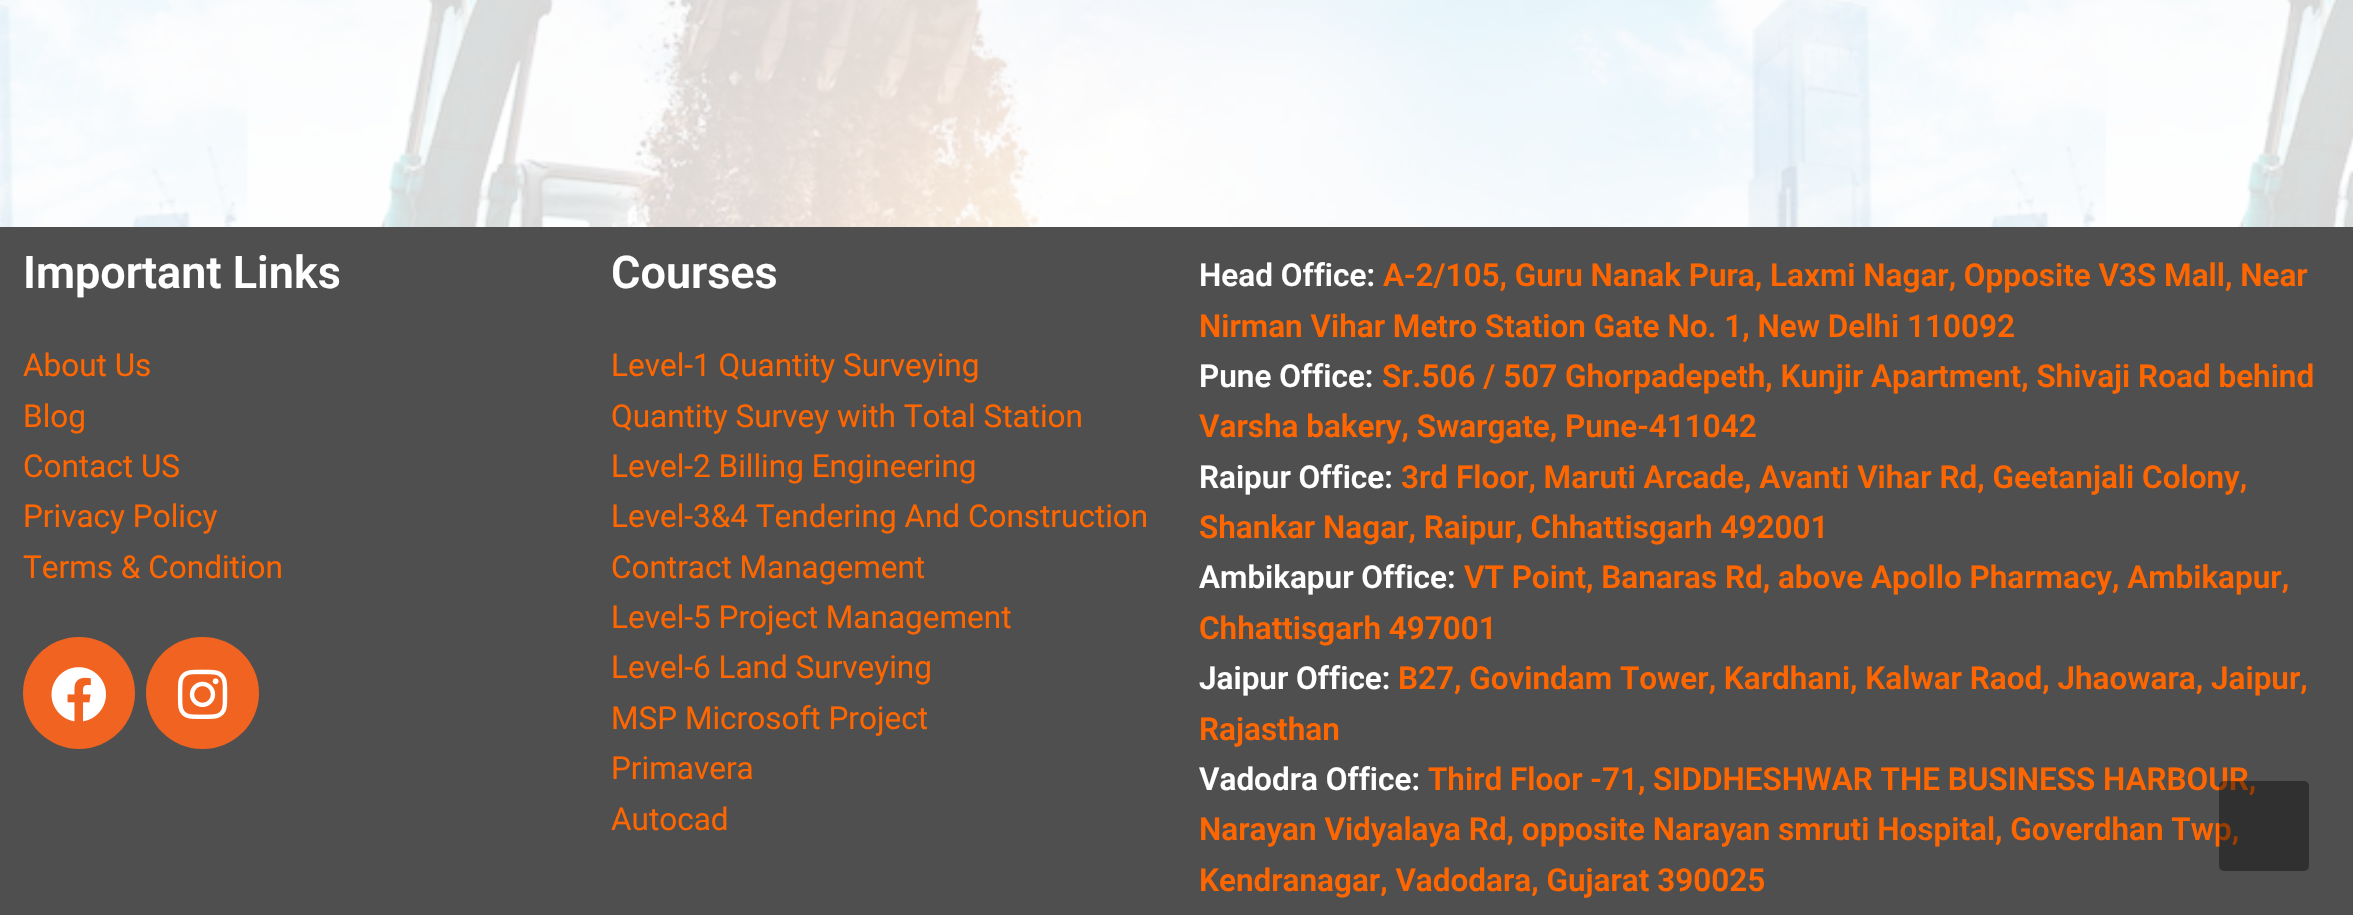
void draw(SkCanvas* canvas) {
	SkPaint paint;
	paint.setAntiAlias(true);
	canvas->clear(0xffffffff);
	canvas->drawImageRect(SkImages::DeferredFromEncodedData(SkData::MakeFromFileName("img1.png")), SkRect::MakeXYWH(0, 0, 2353, 227), SkSamplingOptions());
	paint.setColor(0xff4f4f4f);
	canvas->drawRect(SkRect::MakeXYWH(0, 227, 2353, 688), paint);
	SkFont f1(fontMgr->matchFamilyStyle("Roboto", SkFontStyle(600, SkFontStyle::kNormal_Width, SkFontStyle::kUpright_Slant)), 45);
	f1.setSubpixel(true);
	paint.setColor(0xffffffff);
	canvas->drawString("Important Links", 23, 288, f1, paint);
	SkFont f2(fontMgr->matchFamilyStyle("Roboto", SkFontStyle::Normal()), 31.5);
	f2.setSubpixel(true);
	paint.setColor(0xffff6600);
	canvas->drawString("About Us", 23, 376, f2, paint);
	canvas->drawString("Blog", 23, 427, f2, paint);
	canvas->drawString("Contact US", 23, 477, f2, paint);
	canvas->drawString("Privacy Policy", 23, 527, f2, paint);
	canvas->drawString("Terms & Condition", 23, 578, f2, paint);
	paint.setColor(0xfff16320);
	canvas->drawCircle(79, 693, 56, paint);
	canvas->drawImageRect(SkImages::DeferredFromEncodedData(SkData::MakeFromFileName("img2.png")), SkRect::MakeXYWH(51, 667, 55, 55), SkSamplingOptions());
	canvas->drawRoundRect(SkRect::MakeXYWH(146, 637, 113, 112), 56, 56, paint);
	canvas->drawImageRect(SkImages::DeferredFromEncodedData(SkData::MakeFromFileName("img3.png")), SkRect::MakeXYWH(177, 669, 51, 50), SkSamplingOptions());
	paint.setColor(0xffffffff);
	canvas->drawString("Courses", 611, 288, f1, paint);
	paint.setColor(0xffff6600);
	canvas->drawString("Level-1 Quantity Surveying", 611, 376, f2, paint);
	canvas->drawString("Quantity Survey with Total Station", 611, 427, f2, paint);
	canvas->drawString("Level-2 Billing Engineering", 611, 477, f2, paint);
	canvas->drawString("Level-3&4 Tendering And Construction", 611, 527, f2, paint);
	canvas->drawString("Contract Management", 611, 578, f2, paint);
	canvas->drawString("Level-5 Project Management", 611, 628, f2, paint);
	canvas->drawString("Level-6 Land Surveying", 611, 678, f2, paint);
	canvas->drawString("MSP Microsoft Project", 611, 729, f2, paint);
	canvas->drawString("Primavera", 611, 779, f2, paint);
	canvas->drawString("Autocad", 611, 830, f2, paint);
	SkFont f3(fontMgr->matchFamilyStyle("Roboto", SkFontStyle(600, SkFontStyle::kNormal_Width, SkFontStyle::kUpright_Slant)), 31.5);
	f3.setSubpixel(true);
	paint.setColor(0xffffffff);
	canvas->drawString("Head Office:", 1199, 286, f3, paint);
	paint.setColor(0xffff6600);
	canvas->drawString("A-2/105, Guru Nanak Pura, Laxmi Nagar, Opposite V3S Mall, Near", 1383, 286, f3, paint);
	canvas->drawString("Nirman Vihar Metro Station Gate No. 1, New Delhi 110092", 1199, 337, f3, paint);
	paint.setColor(0xffffffff);
	canvas->drawString("Pune Office:", 1199, 387, f3, paint);
	paint.setColor(0xffff6600);
	canvas->drawString("Sr.506 / 507 Ghorpadepeth, Kunjir Apartment, Shivaji Road behind", 1382, 387, f3, paint);
	canvas->drawString("Varsha bakery, Swargate, Pune-411042", 1199, 437, f3, paint);
	paint.setColor(0xffffffff);
	canvas->drawString("Raipur Office:", 1199, 488, f3, paint);
	paint.setColor(0xffff6600);
	canvas->drawString("3rd Floor, Maruti Arcade, Avanti Vihar Rd, Geetanjali Colony,", 1401, 488, f3, paint);
	canvas->drawString("Shankar Nagar, Raipur, Chhattisgarh 492001", 1199, 538, f3, paint);
	paint.setColor(0xffffffff);
	canvas->drawString("Ambikapur Office:", 1199, 588, f3, paint);
	paint.setColor(0xffff6600);
	canvas->drawString("VT Point, Banaras Rd, above Apollo Pharmacy, Ambikapur,", 1464, 588, f3, paint);
	canvas->drawString("Chhattisgarh 497001", 1199, 639, f3, paint);
	paint.setColor(0xffffffff);
	canvas->drawString("Jaipur Office:", 1199, 689, f3, paint);
	paint.setColor(0xffff6600);
	canvas->drawString("B27, Govindam Tower, Kardhani, Kalwar Raod, Jhaowara, Jaipur,", 1398, 689, f3, paint);
	canvas->drawString("Rajasthan", 1199, 740, f3, paint);
	paint.setColor(0xffffffff);
	canvas->drawString("Vadodra Office:", 1199, 790, f3, paint);
	paint.setColor(0xffff6600);
	canvas->drawString("Third Floor -71, SIDDHESHWAR THE BUSINESS HARBOUR,", 1428, 790, f3, paint);
	canvas->drawString("Narayan Vidyalaya Rd, opposite Narayan smruti Hospital, Goverdhan Twp,", 1199, 840, f3, paint);
	canvas->drawString("Kendranagar, Vadodara, Gujarat 390025", 1199, 891, f3, paint);
	paint.setColor(0x66000000);
	canvas->drawRoundRect(SkRect::MakeXYWH(2219, 781, 90, 90), 5, 5, paint);
}
